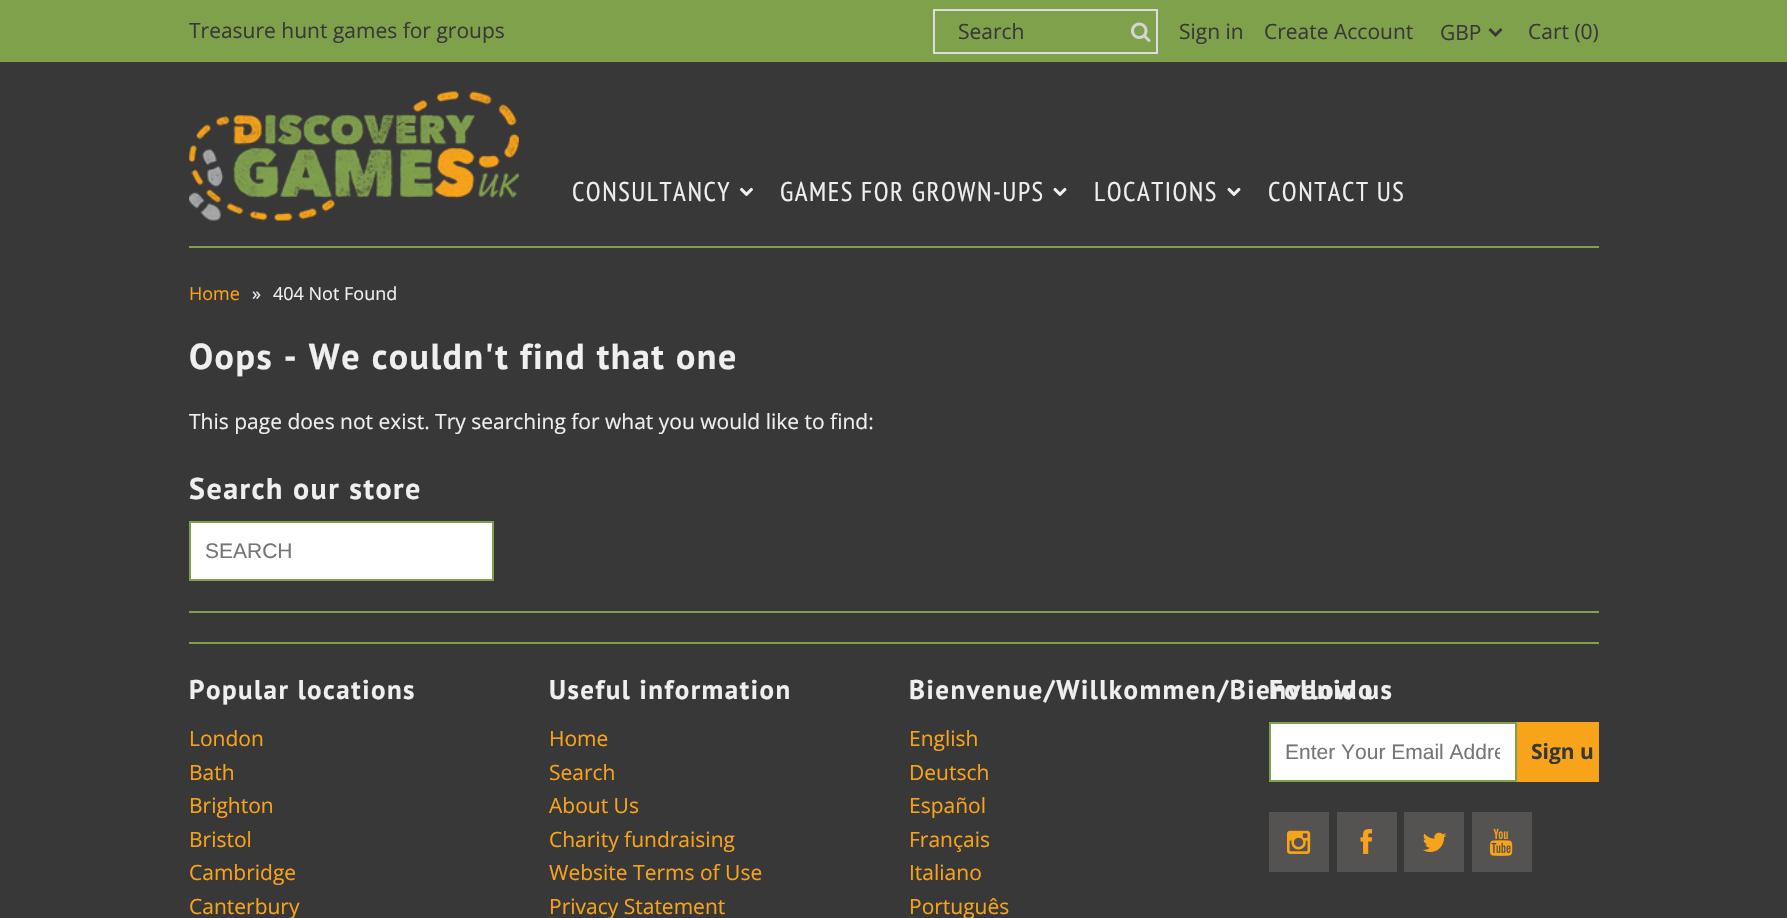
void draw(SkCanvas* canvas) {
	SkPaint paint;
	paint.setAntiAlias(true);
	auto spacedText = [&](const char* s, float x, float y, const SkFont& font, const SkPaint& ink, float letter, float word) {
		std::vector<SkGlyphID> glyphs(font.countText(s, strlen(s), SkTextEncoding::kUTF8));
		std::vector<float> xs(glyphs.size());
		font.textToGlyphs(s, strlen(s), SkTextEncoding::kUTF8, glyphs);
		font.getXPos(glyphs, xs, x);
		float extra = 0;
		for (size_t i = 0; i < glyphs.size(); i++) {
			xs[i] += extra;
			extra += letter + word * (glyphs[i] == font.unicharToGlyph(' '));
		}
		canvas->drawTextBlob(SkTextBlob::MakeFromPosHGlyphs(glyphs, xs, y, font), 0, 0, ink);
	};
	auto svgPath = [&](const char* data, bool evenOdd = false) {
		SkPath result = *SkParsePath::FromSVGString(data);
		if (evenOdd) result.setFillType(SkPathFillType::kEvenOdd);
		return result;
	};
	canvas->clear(0xff393839);
	paint.setColor(0xff80a14c);
	canvas->drawRect(SkRect::MakeXYWH(0, 0, 1787, 62), paint);
	SkFont f1(fontMgr->matchFamilyStyle("Open Sans", SkFontStyle::Normal()), 21);
	f1.setSubpixel(true);
	paint.setColor(0xff393839);
	canvas->drawString("Treasure hunt games for groups", 189, 38, f1, paint);
	paint.setStroke(true);
	paint.setStrokeWidth(2);
	paint.setColor(0xffdddddd);
	canvas->drawRect(SkRect::MakeXYWH(934, 10, 223, 43), paint);
	paint.setStroke(false);
	paint.setColor(0xff393839);
	canvas->drawString("Search", 958, 39, f1, paint);
	canvas->drawImageRect(SkImages::DeferredFromEncodedData(SkData::MakeFromFileName("img1.png")), SkRect::MakeXYWH(1131, 22, 20, 20), SkSamplingOptions());
	canvas->drawString("Sign in", 1179, 39, f1, paint);
	canvas->drawString("Create Account", 1264, 39, f1, paint);
	paint.setStroke(true);
	paint.setStrokeWidth(3);
	canvas->drawPath(svgPath("M1489.5 29L1495.5 35L1501.5 29"), paint);
	paint.setStroke(false);
	canvas->drawString("GBP", 1440, 40, f1, paint);
	canvas->drawString("Cart (0)", 1528, 39, f1, paint);
	canvas->drawImageRect(SkImages::DeferredFromEncodedData(SkData::MakeFromFileName("img2.png")), SkRect::MakeXYWH(189, 91, 330, 130), SkSamplingOptions());
	SkFont f2(fontMgr->matchFamilyStyle("PT Sans Narrow", SkFontStyle::Normal()), 27);
	f2.setSubpixel(true);
	paint.setColor(0xffefefef);
	spacedText("CONSULTANCY", 572, 201, f2, paint, 1.5, 0);
	canvas->drawImageRect(SkImages::DeferredFromEncodedData(SkData::MakeFromFileName("img3.png")), SkRect::MakeXYWH(740, 187, 13, 9), SkSamplingOptions());
	spacedText("GAMES FOR GROWN-UPS", 780, 201, f2, paint, 1.5, 0);
	canvas->drawImageRect(SkImages::DeferredFromEncodedData(SkData::MakeFromFileName("img4.png")), SkRect::MakeXYWH(1053, 187, 14, 9), SkSamplingOptions());
	spacedText("LOCATIONS", 1094, 201, f2, paint, 1.5, 0);
	canvas->drawImageRect(SkImages::DeferredFromEncodedData(SkData::MakeFromFileName("img4.png")), SkRect::MakeXYWH(1227, 187, 14, 9), SkSamplingOptions());
	spacedText("CONTACT US", 1268, 201, f2, paint, 1.5, 0);
	paint.setColor(0xff80a14c);
	canvas->drawRect(SkRect::MakeXYWH(189, 246, 1410, 2), paint);
	SkFont f3(fontMgr->matchFamilyStyle("Open Sans", SkFontStyle::Normal()), 18);
	f3.setSubpixel(true);
	paint.setColor(0xfff8a41a);
	canvas->drawString("Home", 189, 300, f3, paint);
	paint.setColor(0xffefefef);
	canvas->drawString("»", 252, 300, f3, paint);
	canvas->drawString("404 Not Found", 273, 300, f3, paint);
	SkFont f4(fontMgr->matchFamilyStyle("PT Sans", SkFontStyle::Bold()), 36);
	f4.setSubpixel(true);
	spacedText("Oops - We couldn't find that one", 189, 369, f4, paint, 1.5, 0);
	canvas->drawString("This page does not exist. Try searching for what you would like to find:", 189, 429, f1, paint);
	paint.setColor(0xff80a14c);
	canvas->drawRect(SkRect::MakeXYWH(189, 611, 1410, 2), paint);
	SkFont f5(fontMgr->matchFamilyStyle("PT Sans", SkFontStyle::Bold()), 30);
	f5.setSubpixel(true);
	paint.setColor(0xffefefef);
	spacedText("Search our store", 189, 499, f5, paint, 1.5, 0);
	paint.setColor(0xffffffff);
	canvas->drawRect(SkRect::MakeXYWH(190, 522, 303, 58), paint);
	paint.setStroke(true);
	paint.setStrokeWidth(2);
	paint.setColor(0xff80a14c);
	canvas->drawRect(SkRect::MakeXYWH(190, 522, 303, 58), paint);
	SkFont f6(fontMgr->matchFamilyStyle("Liberation Sans", SkFontStyle::Normal()), 21);
	f6.setSubpixel(true);
	paint.setStroke(false);
	paint.setColor(0xff757575);
	canvas->drawString("SEARCH", 205, 558, f6, paint);
	paint.setColor(0xff80a14c);
	canvas->drawRect(SkRect::MakeXYWH(189, 642, 1410, 2), paint);
	SkFont f7(fontMgr->matchFamilyStyle("PT Sans", SkFontStyle::Bold()), 27);
	f7.setSubpixel(true);
	paint.setColor(0xffefefef);
	spacedText("Popular locations", 189, 699, f7, paint, 1.5, 0);
	paint.setColor(0xfff8a41a);
	canvas->drawString("London", 189, 746, f1, paint);
	canvas->drawString("Bath", 189, 780, f1, paint);
	canvas->drawString("Brighton", 189, 813, f1, paint);
	canvas->drawString("Bristol", 189, 847, f1, paint);
	canvas->drawString("Cambridge", 189, 880, f1, paint);
	canvas->drawString("Canterbury", 189, 914, f1, paint);
	paint.setColor(0xffefefef);
	spacedText("Useful information", 549, 699, f7, paint, 1.5, 0);
	paint.setColor(0xfff8a41a);
	canvas->drawString("Home", 549, 746, f1, paint);
	canvas->drawString("Search", 549, 780, f1, paint);
	canvas->drawString("About Us", 549, 813, f1, paint);
	canvas->drawString("Charity fundraising", 549, 847, f1, paint);
	canvas->drawString("Website Terms of Use", 549, 880, f1, paint);
	canvas->drawString("Privacy Statement", 549, 914, f1, paint);
	paint.setColor(0xffefefef);
	spacedText("Bienvenue/Willkommen/Bienvenido", 909, 699, f7, paint, 1.5, 0);
	paint.setColor(0xfff8a41a);
	canvas->drawString("English", 909, 746, f1, paint);
	canvas->drawString("Deutsch", 909, 780, f1, paint);
	canvas->drawString("Español", 909, 813, f1, paint);
	canvas->drawString("Français", 909, 847, f1, paint);
	canvas->drawString("Italiano", 909, 880, f1, paint);
	canvas->drawString("Português", 909, 914, f1, paint);
	paint.setColor(0xffefefef);
	spacedText("Follow us", 1269, 699, f7, paint, 1.5, 0);
	paint.setColor(0xffffffff);
	canvas->drawRect(SkRect::MakeXYWH(1270, 723, 246, 58), paint);
	paint.setStroke(true);
	paint.setColor(0xff80a14c);
	canvas->drawRect(SkRect::MakeXYWH(1270, 723, 246, 58), paint);
	canvas->save();
	canvas->clipRect(SkRect::MakeXYWH(1286, 740, 214, 24));
	paint.setStroke(false);
	paint.setColor(0xff757575);
	canvas->drawString("Enter Your Email Addre", 1285, 759, f6, paint);
	canvas->restore();
	paint.setColor(0xfff8a41a);
	canvas->drawRect(SkRect::MakeXYWH(1517, 722, 82, 60), paint);
	SkFont f8(fontMgr->matchFamilyStyle("Open Sans", SkFontStyle::Bold()), 21);
	f8.setSubpixel(true);
	paint.setColor(0xff393839);
	canvas->drawString("Sign u", 1531, 759, f8, paint);
	paint.setColor(0xff555252);
	canvas->drawRect(SkRect::MakeXYWH(1269, 812, 60, 60), paint);
	canvas->drawImageRect(SkImages::DeferredFromEncodedData(SkData::MakeFromFileName("img5.png")), SkRect::MakeXYWH(1287, 830, 24, 24), SkSamplingOptions());
	canvas->drawRect(SkRect::MakeXYWH(1337, 812, 60, 60), paint);
	canvas->drawImageRect(SkImages::DeferredFromEncodedData(SkData::MakeFromFileName("img6.png")), SkRect::MakeXYWH(1360, 829, 13, 25), SkSamplingOptions());
	canvas->drawRect(SkRect::MakeXYWH(1404, 812, 60, 60), paint);
	canvas->drawImageRect(SkImages::DeferredFromEncodedData(SkData::MakeFromFileName("img7.png")), SkRect::MakeXYWH(1422, 832, 25, 20), SkSamplingOptions());
	canvas->drawRect(SkRect::MakeXYWH(1472, 812, 60, 60), paint);
	canvas->drawImageRect(SkImages::DeferredFromEncodedData(SkData::MakeFromFileName("img8.png")), SkRect::MakeXYWH(1489, 828, 24, 28), SkSamplingOptions());
}
